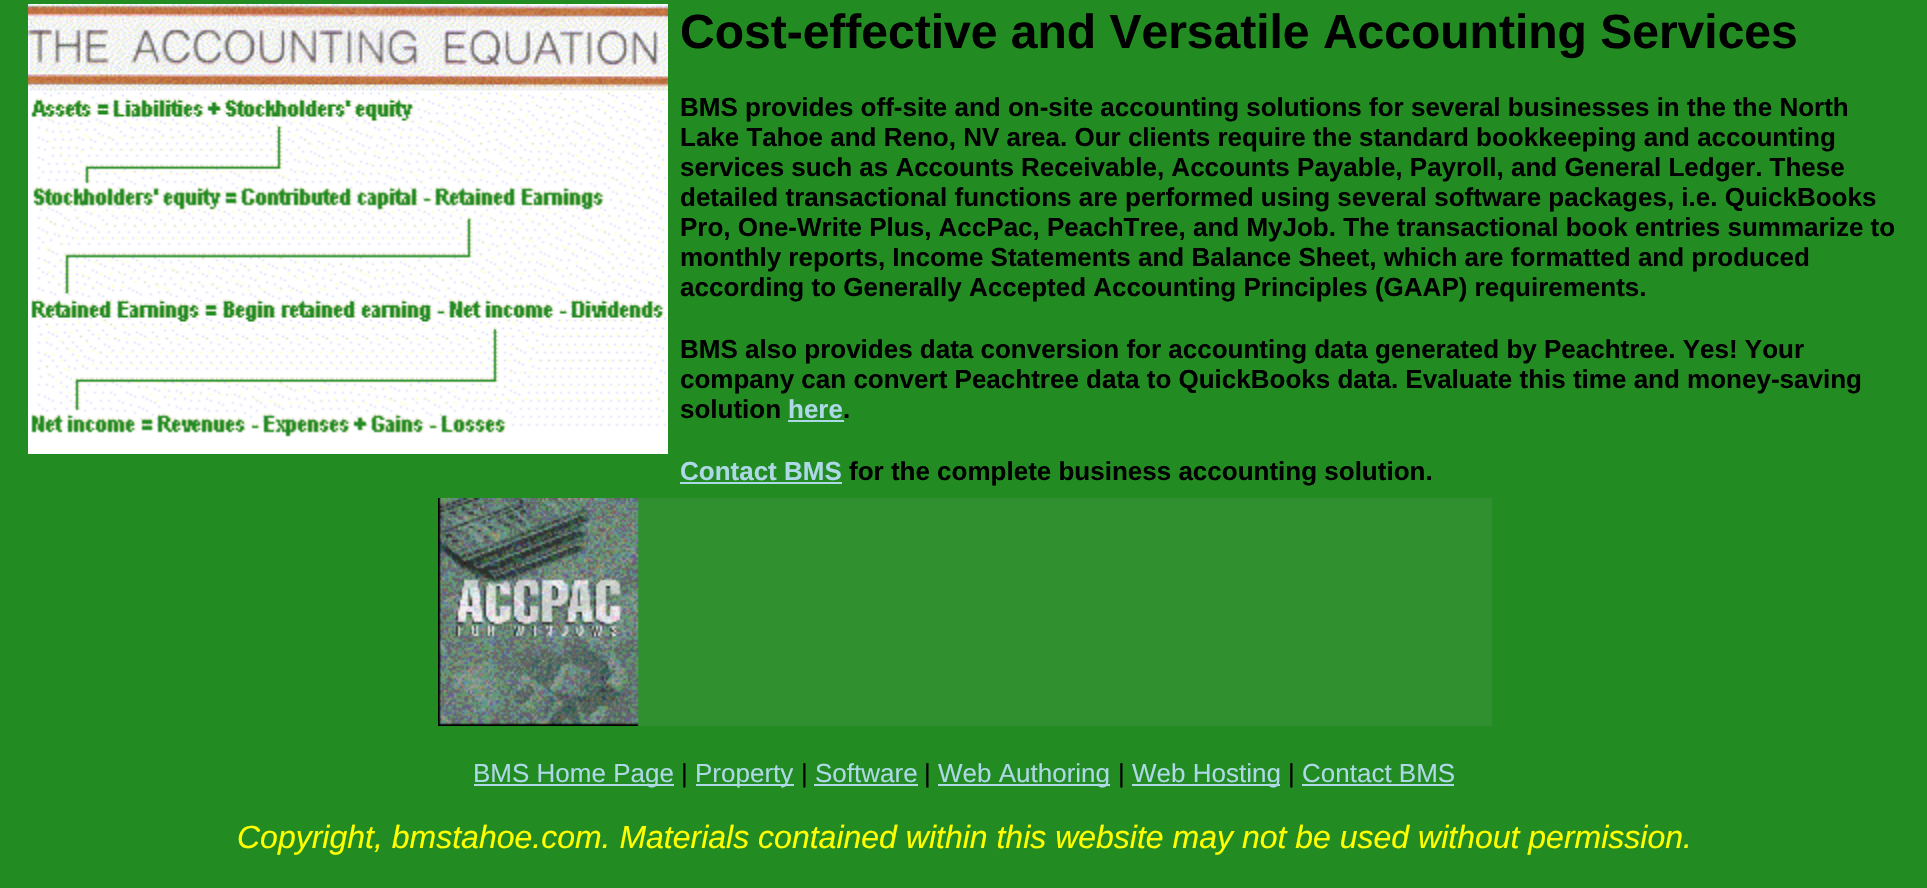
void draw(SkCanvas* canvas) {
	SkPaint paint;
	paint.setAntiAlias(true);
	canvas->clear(0xff228b22);
	canvas->drawImageRect(SkImages::DeferredFromEncodedData(SkData::MakeFromFileName("img1.png")), SkRect::MakeXYWH(28, 4, 640, 450), SkSamplingOptions());
	SkFont f1(fontMgr->matchFamilyStyle("Liberation Sans", SkFontStyle::Bold()), 48);
	f1.setSubpixel(true);
	paint.setColor(0xff000000);
	canvas->drawString("Cost-effective and Versatile Accounting Services", 680, 48, f1, paint);
	SkFont f2(fontMgr->matchFamilyStyle("Liberation Sans", SkFontStyle::Bold()), 26);
	f2.setSubpixel(true);
	canvas->drawString("BMS provides off-site and on-site accounting solutions for several businesses in the the North", 680, 116, f2, paint);
	canvas->drawString("Lake Tahoe and Reno, NV area. Our clients require the standard bookkeeping and accounting", 680, 146, f2, paint);
	canvas->drawString("services such as Accounts Receivable, Accounts Payable, Payroll, and General Ledger. These", 680, 176, f2, paint);
	canvas->drawString("detailed transactional functions are performed using several software packages, i.e. QuickBooks", 680, 206, f2, paint);
	canvas->drawString("Pro, One-Write Plus, AccPac, PeachTree, and MyJob. The transactional book entries summarize to", 680, 236, f2, paint);
	canvas->drawString("monthly reports, Income Statements and Balance Sheet, which are formatted and produced", 680, 266, f2, paint);
	canvas->drawString("according to Generally Accepted Accounting Principles (GAAP) requirements.", 680, 296, f2, paint);
	canvas->drawString("BMS also provides data conversion for accounting data generated by Peachtree. Yes! Your", 680, 358, f2, paint);
	canvas->drawString("company can convert Peachtree data to QuickBooks data. Evaluate this time and money-saving", 680, 388, f2, paint);
	canvas->drawString("solution", 680, 418, f2, paint);
	paint.setColor(0xffadd8e6);
	canvas->drawString("here", 788, 418, f2, paint);
	paint.setColor(0xff000000);
	canvas->drawString(".", 843, 418, f2, paint);
	paint.setColor(0xffadd8e6);
	canvas->drawRect(SkRect::MakeXYWH(788, 420, 56, 2), paint);
	canvas->drawString("Contact BMS", 680, 480, f2, paint);
	canvas->drawRect(SkRect::MakeXYWH(680, 482, 162, 2), paint);
	paint.setColor(0xff000000);
	canvas->drawString("for the complete business accounting solution.", 849, 480, f2, paint);
	canvas->drawImageRect(SkImages::DeferredFromEncodedData(SkData::MakeFromFileName("img2.png")), SkRect::MakeXYWH(438, 498, 1054, 228), SkSamplingOptions());
	paint.setColor(0xffadd8e6);
	canvas->drawRect(SkRect::MakeXYWH(474, 784, 200, 2), paint);
	SkFont f3(fontMgr->matchFamilyStyle("Liberation Sans", SkFontStyle::Normal()), 26);
	f3.setSubpixel(true);
	canvas->drawString("BMS Home Page", 473, 782, f3, paint);
	paint.setColor(0xff000000);
	canvas->drawString("|", 681, 782, f3, paint);
	paint.setColor(0xffadd8e6);
	canvas->drawRect(SkRect::MakeXYWH(696, 784, 98, 2), paint);
	canvas->drawString("Property", 695, 782, f3, paint);
	paint.setColor(0xff000000);
	canvas->drawString("|", 801, 782, f3, paint);
	paint.setColor(0xffadd8e6);
	canvas->drawString("Software", 815, 782, f3, paint);
	canvas->drawRect(SkRect::MakeXYWH(814, 784, 104, 2), paint);
	paint.setColor(0xff000000);
	canvas->drawString("|", 924, 782, f3, paint);
	paint.setColor(0xffadd8e6);
	canvas->drawRect(SkRect::MakeXYWH(938, 784, 172, 2), paint);
	canvas->drawString("Web Authoring", 938, 782, f3, paint);
	paint.setColor(0xff000000);
	canvas->drawString("|", 1118, 782, f3, paint);
	paint.setColor(0xffadd8e6);
	canvas->drawRect(SkRect::MakeXYWH(1132, 784, 148, 2), paint);
	canvas->drawString("Web Hosting", 1132, 782, f3, paint);
	paint.setColor(0xff000000);
	canvas->drawString("|", 1288, 782, f3, paint);
	paint.setColor(0xffadd8e6);
	canvas->drawString("Contact BMS", 1302, 782, f3, paint);
	canvas->drawRect(SkRect::MakeXYWH(1302, 784, 152, 2), paint);
	SkFont f4(fontMgr->matchFamilyStyle("Liberation Sans", SkFontStyle::Italic()), 32);
	f4.setSubpixel(true);
	paint.setColor(0xffffff00);
	canvas->drawString("Copyright, bmstahoe.com. Materials contained within this website may not be used without permission.", 237, 848, f4, paint);
}
